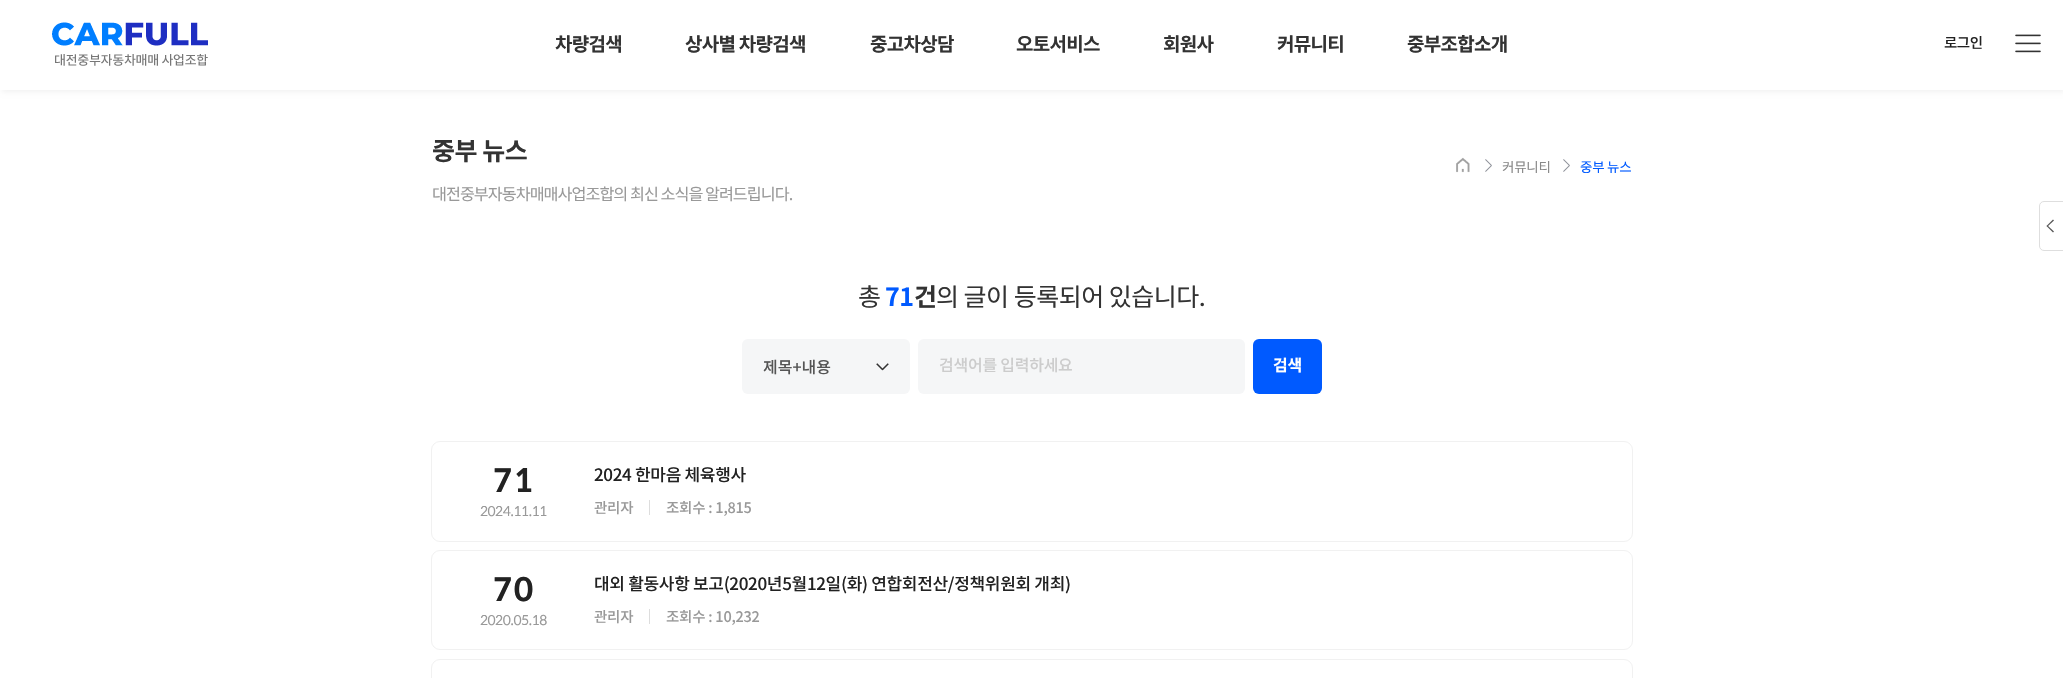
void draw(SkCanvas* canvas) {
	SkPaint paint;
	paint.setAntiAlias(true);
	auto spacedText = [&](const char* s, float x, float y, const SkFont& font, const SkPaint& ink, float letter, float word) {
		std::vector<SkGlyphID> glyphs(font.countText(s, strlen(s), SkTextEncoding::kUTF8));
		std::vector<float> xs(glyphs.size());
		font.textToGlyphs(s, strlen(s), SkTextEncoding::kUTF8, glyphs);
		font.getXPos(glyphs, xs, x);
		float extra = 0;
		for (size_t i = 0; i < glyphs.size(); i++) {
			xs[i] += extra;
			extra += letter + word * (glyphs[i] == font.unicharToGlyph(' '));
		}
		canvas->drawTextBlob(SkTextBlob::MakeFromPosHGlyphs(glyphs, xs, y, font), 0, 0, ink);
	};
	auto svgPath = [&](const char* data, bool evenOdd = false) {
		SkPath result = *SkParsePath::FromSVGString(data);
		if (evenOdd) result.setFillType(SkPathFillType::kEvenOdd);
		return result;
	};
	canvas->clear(0xffffffff);
	paint.setColor(0x0d000000);
	paint.setMaskFilter(SkMaskFilter::MakeBlur(kNormal_SkBlurStyle, 2.5));
	canvas->drawRect(SkRect::MakeXYWH(2, 2, 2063, 90), paint);
	paint.setMaskFilter(nullptr);
	paint.setColor(0xffffffff);
	canvas->drawRect(SkRect::MakeXYWH(0, 0, 2063, 90), paint);
	canvas->drawImageRect(SkImages::DeferredFromEncodedData(SkData::MakeFromFileName("img1.png")), SkRect::MakeXYWH(52, 22, 156, 44), SkSamplingOptions());
	SkFont f1(fontMgr->matchFamilyStyle("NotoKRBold", SkFontStyle::Bold()), 19);
	f1.setSubpixel(true);
	paint.setColor(0xff333333);
	spacedText("차량검색", 555, 51, f1, paint, -0.75, 0);
	spacedText("상사별 차량검색", 685, 51, f1, paint, -0.75, 0);
	spacedText("중고차상담", 870, 51, f1, paint, -0.75, 0);
	spacedText("오토서비스", 1016, 51, f1, paint, -0.75, 0);
	spacedText("회원사", 1163, 51, f1, paint, -0.75, 0);
	spacedText("커뮤니티", 1277, 51, f1, paint, -0.75, 0);
	spacedText("중부조합소개", 1407, 51, f1, paint, -0.75, 0);
	SkFont f2(fontMgr->matchFamilyStyle("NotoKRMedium", SkFontStyle(500, SkFontStyle::kNormal_Width, SkFontStyle::kUpright_Slant)), 14.5);
	f2.setSubpixel(true);
	paint.setColor(0xff222222);
	spacedText("로그인", 1944, 48, f2, paint, -0.5, 0);
	canvas->drawImageRect(SkImages::DeferredFromEncodedData(SkData::MakeFromFileName("img2.png")), SkRect::MakeXYWH(2015, 34, 26, 19), SkSamplingOptions());
	SkFont f3(fontMgr->matchFamilyStyle("NotoKRBold", SkFontStyle::Bold()), 25);
	f3.setSubpixel(true);
	paint.setColor(0xff333333);
	spacedText("중부 뉴스", 432, 160, f3, paint, -0.5, 0);
	SkFont f4(fontMgr->matchFamilyStyle("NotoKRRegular", SkFontStyle::Normal()), 16.25);
	f4.setSubpixel(true);
	paint.setColor(0xff999999);
	spacedText("대전중부자동차매매사업조합의 최신 소식을 알려드립니다.", 432, 200, f4, paint, -1, 0);
	canvas->drawImageRect(SkImages::DeferredFromEncodedData(SkData::MakeFromFileName("img3.png")), SkRect::MakeXYWH(1456, 157, 14, 16), SkSamplingOptions());
	canvas->drawImageRect(SkImages::DeferredFromEncodedData(SkData::MakeFromFileName("img4.png")), SkRect::MakeXYWH(1485, 159, 7, 13), SkSamplingOptions());
	SkFont f5(fontMgr->matchFamilyStyle("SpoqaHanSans", SkFontStyle::Normal()), 13.5);
	f5.setSubpixel(true);
	paint.setColor(0xff888888);
	spacedText("커뮤니티", 1502, 172, f5, paint, -0.25, 0);
	canvas->drawImageRect(SkImages::DeferredFromEncodedData(SkData::MakeFromFileName("img4.png")), SkRect::MakeXYWH(1563, 159, 7, 13), SkSamplingOptions());
	paint.setColor(0xff005aff);
	spacedText("중부 뉴스", 1580, 172, f5, paint, -0.25, 0);
	paint.setStroke(true);
	paint.setStrokeWidth(1);
	paint.setColor(0xffdedede);
	canvas->drawPath(svgPath("M2044 201.5H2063.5V250.5H2044C2041.5 250.5 2039.5 248.5 2039.5 246V206C2039.5 203.5 2041.5 201.5 2044 201.5Z"), paint);
	paint.setStroke(false);
	paint.setColor(0xff555555);
	canvas->drawPath(svgPath("M2054 231.5L2053 232.5L2046.5 226L2047.5 225.5Z"), paint);
	canvas->drawPath(svgPath("M2054 220.5L2047.5 226.5L2046.5 226L2053 219.5Z"), paint);
	SkFont f6(fontMgr->matchFamilyStyle("NotoKRRegular", SkFontStyle::Normal()), 25);
	f6.setSubpixel(true);
	paint.setColor(0xff333333);
	spacedText("총", 858, 306, f6, paint, -0.5, 0);
	paint.setColor(0xff005aff);
	spacedText("71", 885, 306, f3, paint, -0.5, 0);
	paint.setColor(0xff333333);
	spacedText("건", 914, 306, f3, paint, -0.5, 0);
	spacedText("의 글이 등록되어 있습니다.", 936, 306, f6, paint, -0.5, 0);
	paint.setColor(0xfff5f6f7);
	canvas->drawRoundRect(SkRect::MakeXYWH(742, 339, 168, 55), 6, 6, paint);
	canvas->drawImageRect(SkImages::DeferredFromEncodedData(SkData::MakeFromFileName("img5.png")), SkRect::MakeXYWH(876, 363, 13, 8), SkSamplingOptions());
	SkFont f7(fontMgr->matchFamilyStyle("NotoKRMedium", SkFontStyle(500, SkFontStyle::kNormal_Width, SkFontStyle::kUpright_Slant)), 16);
	f7.setSubpixel(true);
	paint.setColor(0xff555555);
	canvas->drawString("제목+내용", 763, 373, f7, paint);
	paint.setColor(0xfff5f6f7);
	canvas->drawRoundRect(SkRect::MakeXYWH(918, 339, 327, 55), 6, 6, paint);
	paint.setColor(0xffcccccc);
	spacedText("검색어를 입력하세요", 939, 371, f7, paint, -0.25, 0);
	paint.setColor(0xff005aff);
	canvas->drawRoundRect(SkRect::MakeXYWH(1253, 339, 69, 55), 6, 6, paint);
	SkFont f8(fontMgr->matchFamilyStyle("NotoKRBold", SkFontStyle::Bold()), 16);
	f8.setSubpixel(true);
	paint.setColor(0xffffffff);
	spacedText("검색", 1273, 371, f8, paint, -0.25, 0);
	paint.setColor(0xffdddddd);
	canvas->drawRect(SkRect::MakeXYWH(649, 500, 1, 15), paint);
	paint.setStroke(true);
	paint.setColor(0xfff1f1f1);
	canvas->drawRoundRect(SkRect::MakeXYWH(431.5, 441.5, 1201, 100), 8.5, 8.5, paint);
	SkFont f9(fontMgr->matchFamilyStyle("SpoqaHanSans", SkFontStyle::Bold()), 32);
	f9.setSubpixel(true);
	paint.setStroke(false);
	paint.setColor(0xff222222);
	spacedText("71", 493, 492, f9, paint, 2, 0);
	paint.setColor(0xff999999);
	spacedText("2024.11.11", 480, 516, f5, paint, -0.5, 0);
	SkFont f10(fontMgr->matchFamilyStyle("NotoKRMedium", SkFontStyle(500, SkFontStyle::kNormal_Width, SkFontStyle::kUpright_Slant)), 17.05);
	f10.setSubpixel(true);
	paint.setColor(0xff222222);
	spacedText("2024 한마음 체육행사", 594, 481, f10, paint, -0.35, 0);
	paint.setColor(0xff999999);
	spacedText("관리자", 594, 513, f2, paint, -0.25, 0);
	spacedText("조회수 : 1,815", 666, 513, f2, paint, -0.25, 0);
	paint.setColor(0xffdddddd);
	canvas->drawRect(SkRect::MakeXYWH(649, 609, 1, 15), paint);
	paint.setStroke(true);
	paint.setColor(0xfff1f1f1);
	canvas->drawRoundRect(SkRect::MakeXYWH(431.5, 550.5, 1201, 99), 8.5, 8.5, paint);
	paint.setStroke(false);
	paint.setColor(0xff222222);
	spacedText("70", 493, 601, f9, paint, 2, 0);
	paint.setColor(0xff999999);
	spacedText("2020.05.18", 480, 625, f5, paint, -0.5, 0);
	paint.setColor(0xff222222);
	spacedText("대외 활동사항 보고(2020년5월12일(화) 연합회전산/정책위원회 개최)", 594, 590, f10, paint, -0.35, 0);
	paint.setColor(0xff999999);
	spacedText("관리자", 594, 622, f2, paint, -0.25, 0);
	spacedText("조회수 : 10,232", 666, 622, f2, paint, -0.25, 0);
	paint.setStroke(true);
	paint.setColor(0xfff1f1f1);
	canvas->drawRoundRect(SkRect::MakeXYWH(431.5, 659.5, 1201, 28), 8.5, 8.5, paint);
}
